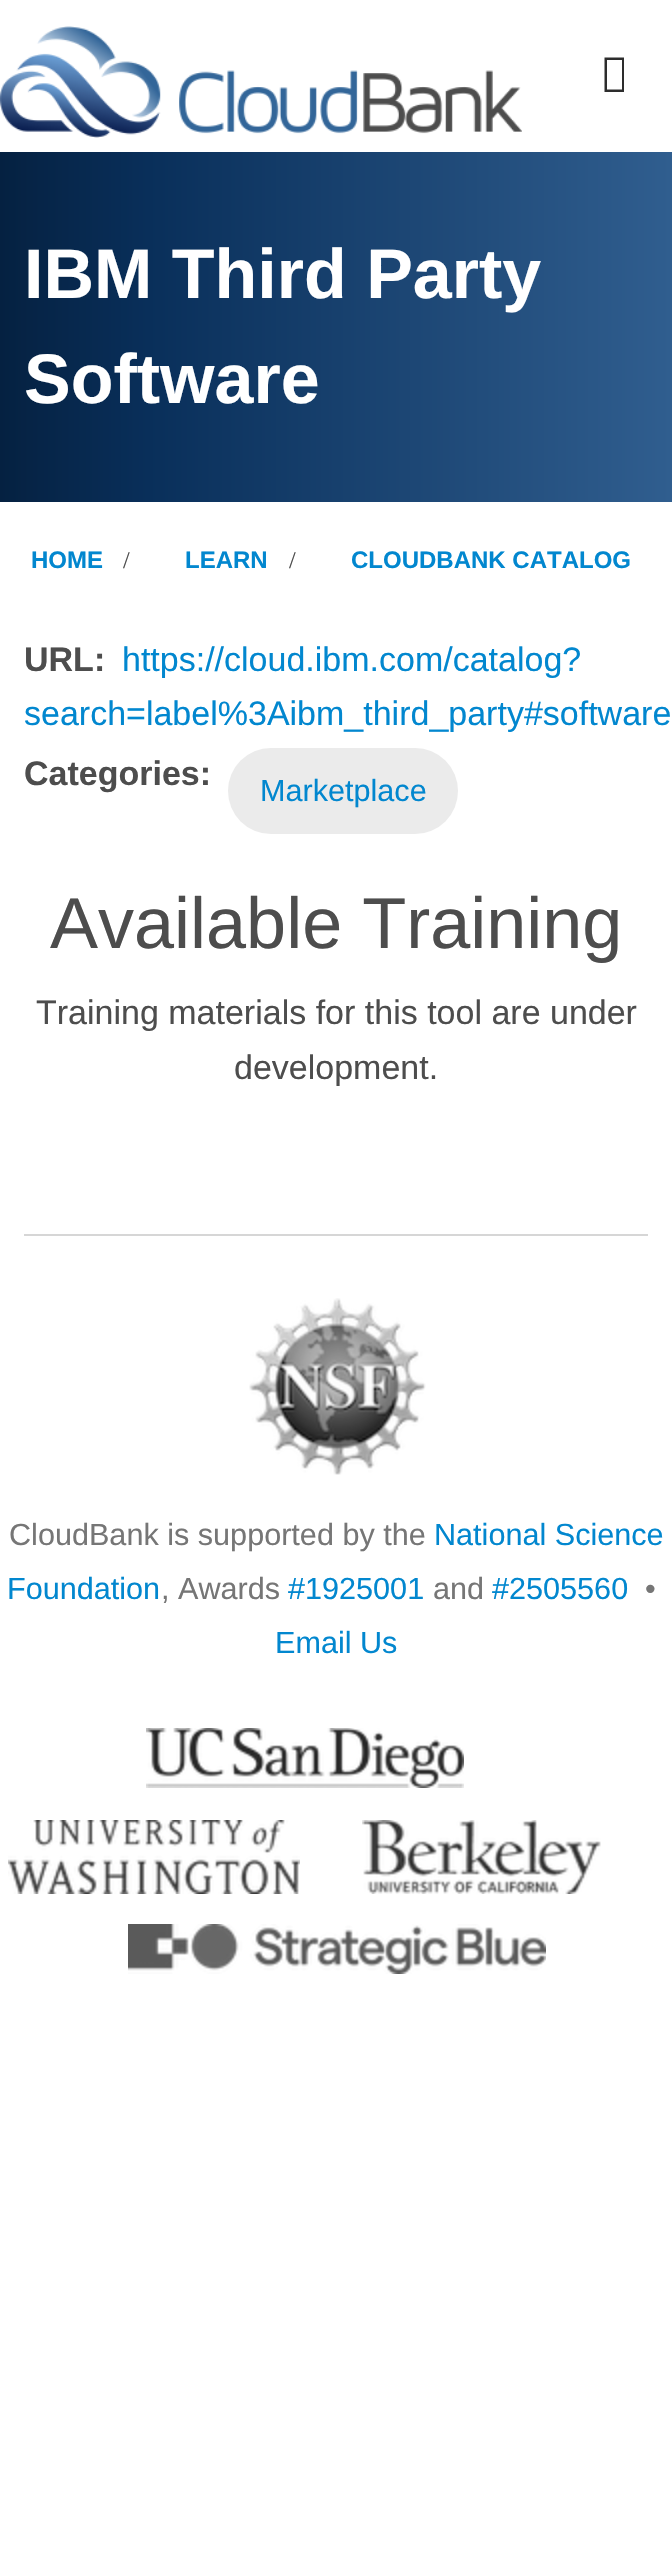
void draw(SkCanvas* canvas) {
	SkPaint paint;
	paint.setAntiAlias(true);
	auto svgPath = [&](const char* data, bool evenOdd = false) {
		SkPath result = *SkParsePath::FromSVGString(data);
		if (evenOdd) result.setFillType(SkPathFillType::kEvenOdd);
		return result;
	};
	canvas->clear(0xffffffff);
	canvas->drawImageRect(SkImages::DeferredFromEncodedData(SkData::MakeFromFileName("img1.png")), SkRect::MakeXYWH(0, 26, 522, 112), SkSamplingOptions());
	paint.setColor(0xff2d2d2d);
	canvas->drawPath(svgPath("M604.5 92V57.5H624V92ZM607 89.5H622V60H607Z"), paint);
	{
		const SkColor colors[] = {0xff052141, 0xff092f5a, 0xff305e8f};
		const float stops[] = {0, 0.22, 1};
		const SkPoint ends[] = {{0, 327}, {672, 327}};
		paint.setShader(SkGradientShader::MakeLinear(ends, colors, stops, 3, SkTileMode::kClamp));
		paint.setAlpha(255);
	}
	canvas->drawRect(SkRect::MakeXYWH(0, 152, 672, 350), paint);
	SkFont f1(fontMgr->matchFamilyStyle("Liberation Sans", SkFontStyle::Bold()), 70);
	f1.setSubpixel(true);
	paint.setShader(nullptr);
	paint.setColor(0xffffffff);
	canvas->drawString("IBM Third Party", 24, 298, f1, paint);
	canvas->drawString("Software", 24, 403, f1, paint);
	SkFont f2(fontMgr->matchFamilyStyle("Liberation Sans", SkFontStyle::Bold()), 24);
	f2.setSubpixel(true);
	paint.setColor(0xff0287cf);
	canvas->drawString("HOME", 31, 568, f2, paint);
	SkFont f3(fontMgr->matchFamilyStyle("Liberation Serif", SkFontStyle::Normal()), 24);
	f3.setSubpixel(true);
	paint.setColor(0xff4d4d4d);
	canvas->drawString("/", 123, 568, f3, paint);
	paint.setColor(0xff0287cf);
	canvas->drawString("LEARN", 185, 568, f2, paint);
	paint.setColor(0xff4d4d4d);
	canvas->drawString("/", 289, 568, f3, paint);
	paint.setColor(0xff0287cf);
	canvas->drawString("CLOUDBANK CATALOG", 351, 568, f2, paint);
	SkFont f4(fontMgr->matchFamilyStyle("Liberation Sans", SkFontStyle::Normal()), 34);
	f4.setSubpixel(true);
	canvas->drawString("https://cloud.ibm.com/catalog?", 122, 671, f4, paint);
	canvas->drawString("search=label%3Aibm_third_party#software", 24, 725, f4, paint);
	SkFont f5(fontMgr->matchFamilyStyle("Liberation Sans", SkFontStyle::Bold()), 34);
	f5.setSubpixel(true);
	paint.setColor(0xff4d4d4d);
	canvas->drawString("URL:", 24, 671, f5, paint);
	canvas->drawString("Categories:", 24, 785, f5, paint);
	paint.setColor(0xffebebeb);
	canvas->drawRoundRect(SkRect::MakeXYWH(228, 748, 230, 86), 43, 43, paint);
	SkFont f6(fontMgr->matchFamilyStyle("Liberation Sans", SkFontStyle::Normal()), 30.6);
	f6.setSubpixel(true);
	paint.setColor(0xff0287cf);
	canvas->drawString("Marketplace", 260, 801, f6, paint);
	SkFont f7(fontMgr->matchFamilyStyle("Liberation Sans", SkFontStyle::Normal()), 72);
	f7.setSubpixel(true);
	paint.setColor(0xff4d4d4d);
	canvas->drawString("Available Training", 50, 948, f7, paint);
	canvas->drawString("Training materials for this tool are under", 36, 1024, f4, paint);
	canvas->drawString("development.", 234, 1079, f4, paint);
	paint.setColor(0xffd6d6d6);
	canvas->drawRect(SkRect::MakeXYWH(24, 1234, 624, 2), paint);
	canvas->drawImageRect(SkImages::DeferredFromEncodedData(SkData::MakeFromFileName("img2.png")), SkRect::MakeXYWH(249, 1298, 177, 177), SkSamplingOptions());
	paint.setColor(0xff767676);
	canvas->drawString("CloudBank is supported by the", 9, 1545, f6, paint);
	paint.setColor(0xff0287cf);
	canvas->drawString("National Science", 434, 1545, f6, paint);
	canvas->drawString("Foundation", 7, 1599, f6, paint);
	paint.setColor(0xff767676);
	canvas->drawString(", Awards", 161, 1599, f6, paint);
	paint.setColor(0xff0287cf);
	canvas->drawString("#1925001", 288, 1599, f6, paint);
	paint.setColor(0xff767676);
	canvas->drawString("and", 433, 1599, f6, paint);
	paint.setColor(0xff0287cf);
	canvas->drawString("#2505560", 492, 1599, f6, paint);
	paint.setColor(0xff767676);
	canvas->drawString("•", 645, 1599, f6, paint);
	paint.setColor(0xff0287cf);
	canvas->drawString("Email Us", 275, 1653, f6, paint);
	canvas->drawImageRect(SkImages::DeferredFromEncodedData(SkData::MakeFromFileName("img3.png")), SkRect::MakeXYWH(146, 1728, 318, 60), SkSamplingOptions());
	canvas->drawImageRect(SkImages::DeferredFromEncodedData(SkData::MakeFromFileName("img4.png")), SkRect::MakeXYWH(8, 1820, 292, 74), SkSamplingOptions());
	canvas->drawImageRect(SkImages::DeferredFromEncodedData(SkData::MakeFromFileName("img5.png")), SkRect::MakeXYWH(362, 1820, 239, 74), SkSamplingOptions());
	canvas->drawImageRect(SkImages::DeferredFromEncodedData(SkData::MakeFromFileName("img6.png")), SkRect::MakeXYWH(128, 1924, 418, 50), SkSamplingOptions());
}
